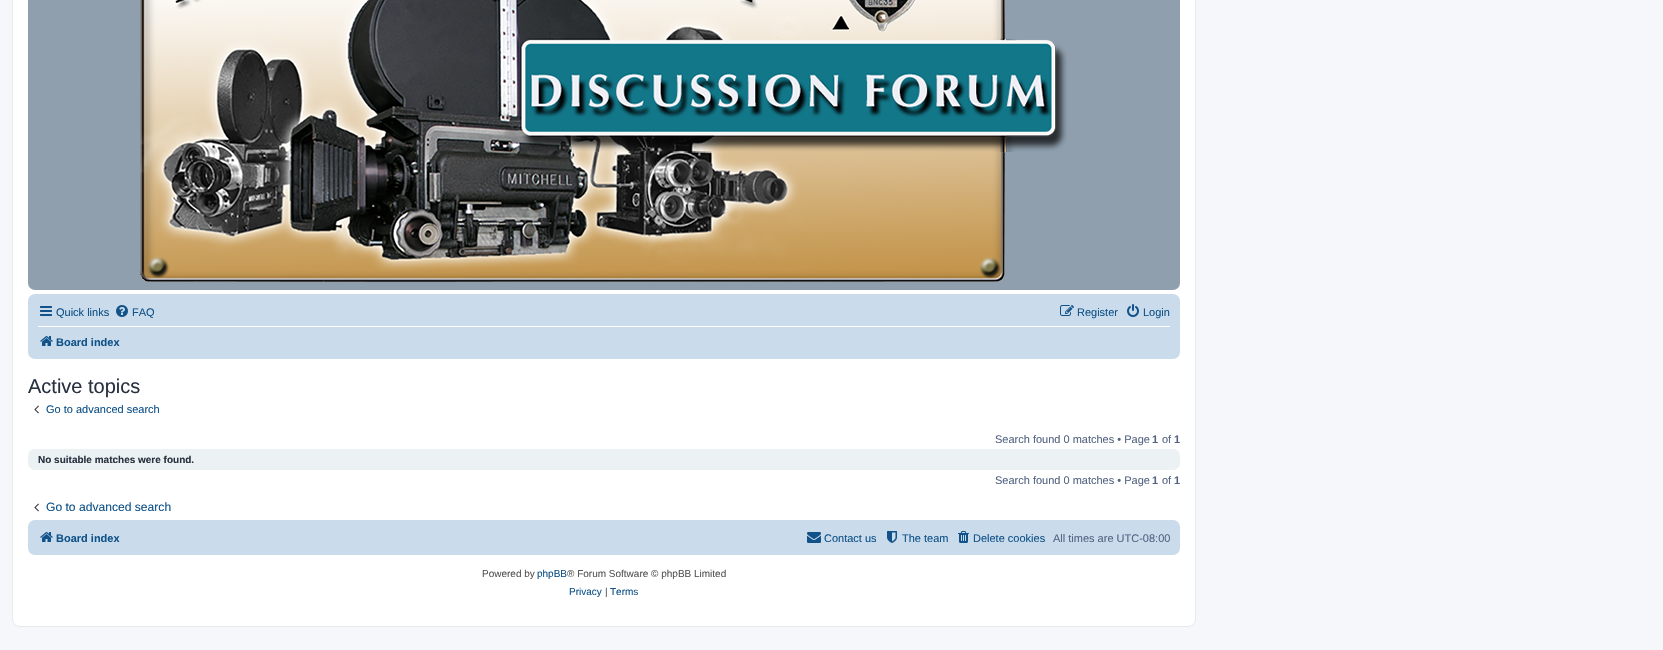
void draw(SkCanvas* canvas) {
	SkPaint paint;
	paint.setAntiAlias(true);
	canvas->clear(0xfff5f7fa);
	paint.setColor(0xffffffff);
	canvas->drawRoundRect(SkRect::MakeXYWH(12.5, -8.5, 1183, 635), 7.5, 7.5, paint);
	paint.setStroke(true);
	paint.setStrokeWidth(1);
	paint.setColor(0xffe6e9ed);
	canvas->drawRoundRect(SkRect::MakeXYWH(12.5, -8.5, 1183, 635), 7.5, 7.5, paint);
	paint.setStroke(false);
	paint.setColor(0xff909fad);
	canvas->drawRoundRect(SkRect::MakeXYWH(28, -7, 1152, 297), 7, 7, paint);
	canvas->drawImageRect(SkImages::DeferredFromEncodedData(SkData::MakeFromFileName("img1.png")), SkRect::MakeXYWH(140, 0, 927, 282), SkSamplingOptions());
	paint.setColor(0xffcadceb);
	canvas->drawRoundRect(SkRect::MakeXYWH(28, 294, 1152, 65), 7, 7, paint);
	canvas->drawImageRect(SkImages::DeferredFromEncodedData(SkData::MakeFromFileName("img2.png")), SkRect::MakeXYWH(40, 306, 12, 10), SkSamplingOptions());
	SkFont f1(fontMgr->matchFamilyStyle("Liberation Sans", SkFontStyle::Normal()), 11);
	f1.setSubpixel(true);
	paint.setColor(0xff105289);
	canvas->drawString("Quick links", 56, 316, f1, paint);
	canvas->drawImageRect(SkImages::DeferredFromEncodedData(SkData::MakeFromFileName("img3.png")), SkRect::MakeXYWH(116, 305, 12, 12), SkSamplingOptions());
	canvas->drawString("FAQ", 132, 316, f1, paint);
	canvas->drawImageRect(SkImages::DeferredFromEncodedData(SkData::MakeFromFileName("img4.png")), SkRect::MakeXYWH(1060, 305, 14, 11), SkSamplingOptions());
	canvas->drawString("Register", 1077, 316, f1, paint);
	canvas->drawImageRect(SkImages::DeferredFromEncodedData(SkData::MakeFromFileName("img5.png")), SkRect::MakeXYWH(1127, 304, 12, 13), SkSamplingOptions());
	canvas->drawString("Login", 1143, 316, f1, paint);
	paint.setColor(0xffffffff);
	canvas->drawRect(SkRect::MakeXYWH(38, 326, 1132, 1), paint);
	canvas->drawImageRect(SkImages::DeferredFromEncodedData(SkData::MakeFromFileName("img6.png")), SkRect::MakeXYWH(40, 336, 13, 10), SkSamplingOptions());
	SkFont f2(fontMgr->matchFamilyStyle("Liberation Sans", SkFontStyle::Bold()), 11);
	f2.setSubpixel(true);
	paint.setColor(0xff105289);
	canvas->drawString("Board index", 56, 346, f2, paint);
	SkFont f3(fontMgr->matchFamilyStyle("Liberation Sans", SkFontStyle::Normal()), 20);
	f3.setSubpixel(true);
	paint.setColor(0xff28313f);
	canvas->drawString("Active topics", 28, 393, f3, paint);
	canvas->drawImageRect(SkImages::DeferredFromEncodedData(SkData::MakeFromFileName("img7.png")), SkRect::MakeXYWH(34, 405, 5, 9), SkSamplingOptions());
	paint.setColor(0xff105289);
	canvas->drawString("Go to advanced search", 46, 413, f1, paint);
	paint.setColor(0xff536482);
	canvas->drawString("Search found 0 matches • Page", 995, 443, f1, paint);
	canvas->drawString("1", 1152, 443, f2, paint);
	canvas->drawString("of", 1162, 443, f1, paint);
	canvas->drawString("1", 1174, 443, f2, paint);
	paint.setColor(0xffecf1f3);
	canvas->drawRoundRect(SkRect::MakeXYWH(28, 449, 1152, 21), 7, 7, paint);
	SkFont f4(fontMgr->matchFamilyStyle("Liberation Sans", SkFontStyle::Bold()), 10);
	f4.setSubpixel(true);
	paint.setColor(0xff28313f);
	canvas->drawString("No suitable matches were found.", 38, 463, f4, paint);
	paint.setColor(0xff536482);
	canvas->drawString("Search found 0 matches • Page", 995, 484, f1, paint);
	canvas->drawString("1", 1152, 484, f2, paint);
	canvas->drawString("of", 1162, 484, f1, paint);
	canvas->drawString("1", 1174, 484, f2, paint);
	canvas->drawImageRect(SkImages::DeferredFromEncodedData(SkData::MakeFromFileName("img7.png")), SkRect::MakeXYWH(34, 503, 5, 9), SkSamplingOptions());
	SkFont f5(fontMgr->matchFamilyStyle("Liberation Sans", SkFontStyle::Normal()), 12.1);
	f5.setSubpixel(true);
	paint.setColor(0xff105289);
	canvas->drawString("Go to advanced search", 46, 511, f5, paint);
	paint.setColor(0xffcadceb);
	canvas->drawRoundRect(SkRect::MakeXYWH(28, 520, 1152, 35), 7, 7, paint);
	canvas->drawImageRect(SkImages::DeferredFromEncodedData(SkData::MakeFromFileName("img6.png")), SkRect::MakeXYWH(40, 532, 13, 10), SkSamplingOptions());
	paint.setColor(0xff105289);
	canvas->drawString("Board index", 56, 542, f2, paint);
	canvas->drawImageRect(SkImages::DeferredFromEncodedData(SkData::MakeFromFileName("img8.png")), SkRect::MakeXYWH(807, 532, 14, 11), SkSamplingOptions());
	canvas->drawString("Contact us", 824, 542, f1, paint);
	canvas->drawImageRect(SkImages::DeferredFromEncodedData(SkData::MakeFromFileName("img9.png")), SkRect::MakeXYWH(887, 531, 10, 12), SkSamplingOptions());
	canvas->drawString("The team", 902, 542, f1, paint);
	canvas->drawImageRect(SkImages::DeferredFromEncodedData(SkData::MakeFromFileName("img10.png")), SkRect::MakeXYWH(958, 531, 11, 12), SkSamplingOptions());
	canvas->drawString("Delete cookies", 973, 542, f1, paint);
	paint.setColor(0xff536482);
	canvas->drawString("All times are UTC-08:00", 1053, 542, f1, paint);
	SkFont f6(fontMgr->matchFamilyStyle("Liberation Sans", SkFontStyle::Normal()), 10);
	f6.setSubpixel(true);
	paint.setColor(0xff555555);
	canvas->drawString("Powered by", 482, 577, f6, paint);
	paint.setColor(0xff105289);
	canvas->drawString("phpBB", 537, 577, f6, paint);
	paint.setColor(0xff555555);
	canvas->drawString("® Forum Software © phpBB Limited", 567, 577, f6, paint);
	paint.setColor(0xff105289);
	canvas->drawString("Privacy", 569, 595, f6, paint);
	paint.setColor(0xff555555);
	canvas->drawString("|", 605, 595, f6, paint);
	paint.setColor(0xff105289);
	canvas->drawString("Terms", 610, 595, f6, paint);
}
